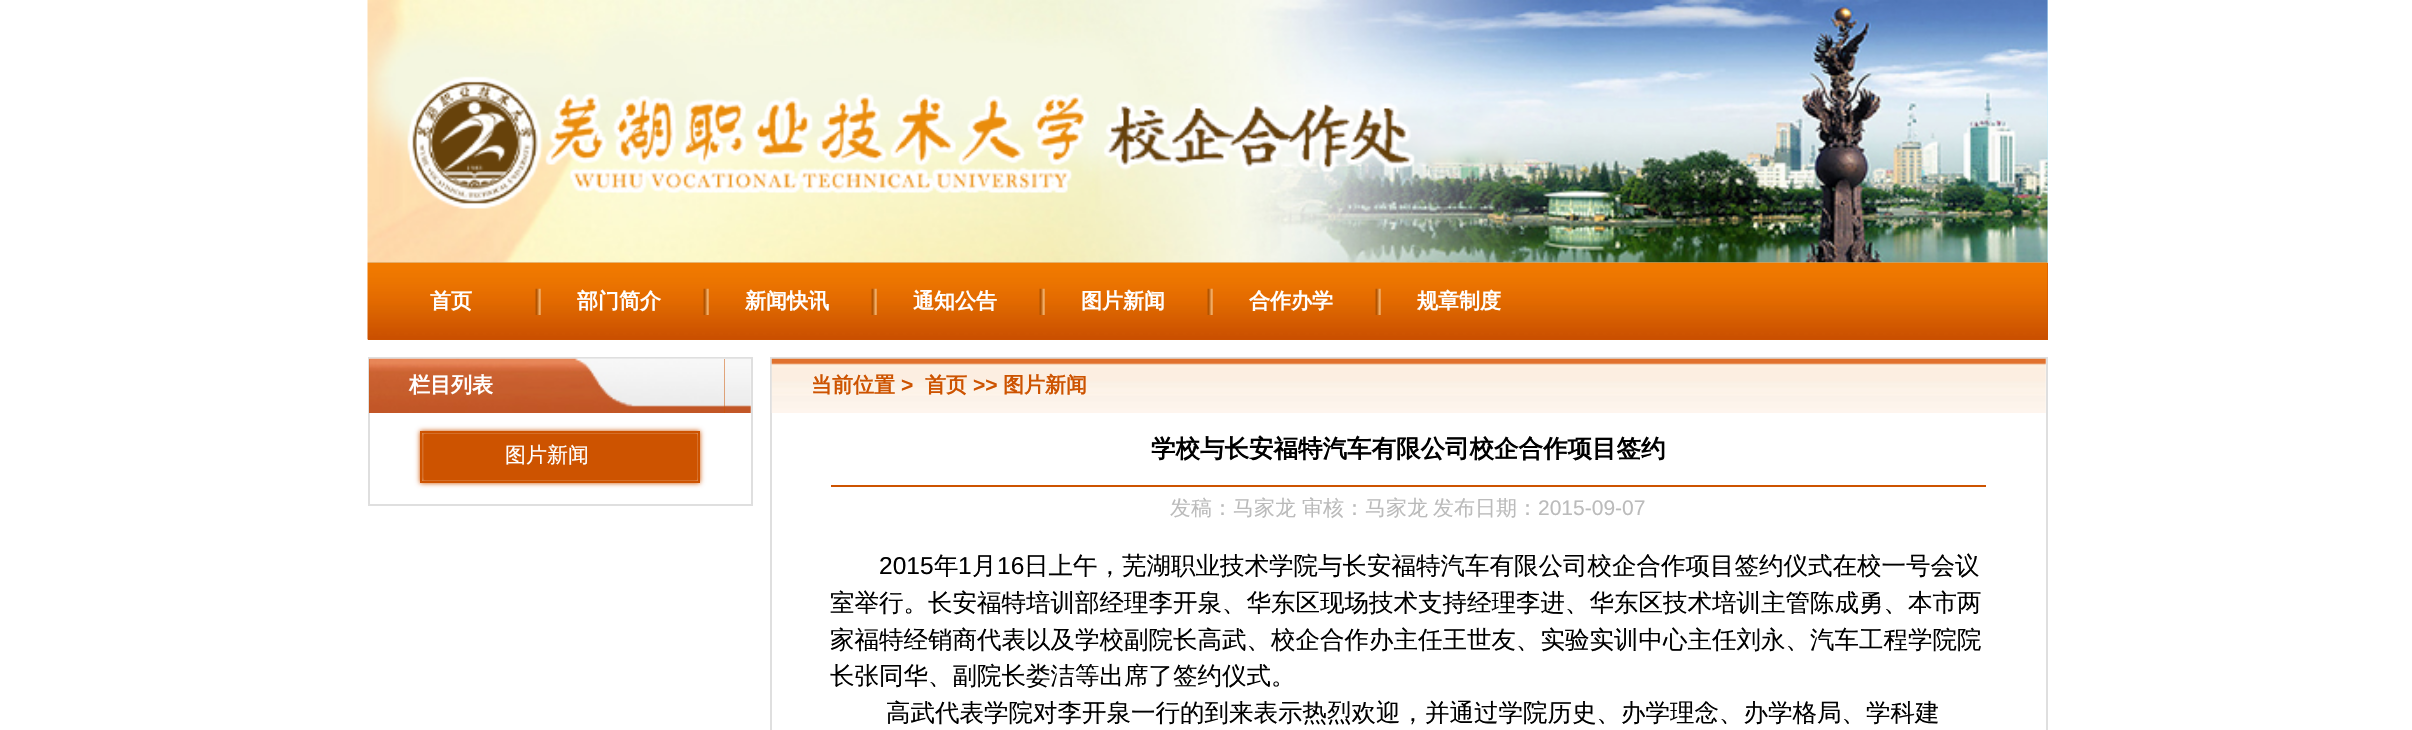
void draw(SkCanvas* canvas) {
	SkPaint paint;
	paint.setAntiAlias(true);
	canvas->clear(0xffffffff);
	paint.setColor(0xffc5f0ff);
	canvas->drawRect(SkRect::MakeXYWH(368, 0, 1680, 263), paint);
	canvas->drawImageRect(SkImages::DeferredFromEncodedData(SkData::MakeFromFileName("img1.png")), SkRect::MakeXYWH(367, 0, 1681, 263), SkSamplingOptions());
	paint.setColor(0xffcd5300);
	canvas->drawRect(SkRect::MakeXYWH(368, 263, 1680, 77), paint);
	canvas->drawImageRect(SkImages::DeferredFromEncodedData(SkData::MakeFromFileName("img2.png")), SkRect::MakeXYWH(367, 262, 1681, 78), SkSamplingOptions());
	SkFont f1(fontMgr->matchFamilyStyle("WenQuanYi Zen Hei", SkFontStyle::Bold()), 21);
	f1.setSubpixel(true);
	paint.setColor(0xffffffff);
	canvas->drawString("首页", 430, 308, f1, paint);
	canvas->drawImageRect(SkImages::DeferredFromEncodedData(SkData::MakeFromFileName("img3.png")), SkRect::MakeXYWH(535, 288, 6, 27), SkSamplingOptions());
	canvas->drawString("部门简介", 577, 308, f1, paint);
	canvas->drawImageRect(SkImages::DeferredFromEncodedData(SkData::MakeFromFileName("img3.png")), SkRect::MakeXYWH(703, 288, 6, 27), SkSamplingOptions());
	canvas->drawString("新闻快讯", 745, 308, f1, paint);
	canvas->drawImageRect(SkImages::DeferredFromEncodedData(SkData::MakeFromFileName("img3.png")), SkRect::MakeXYWH(871, 288, 6, 27), SkSamplingOptions());
	canvas->drawString("通知公告", 913, 308, f1, paint);
	canvas->drawImageRect(SkImages::DeferredFromEncodedData(SkData::MakeFromFileName("img3.png")), SkRect::MakeXYWH(1039, 288, 6, 27), SkSamplingOptions());
	canvas->drawString("图片新闻", 1081, 308, f1, paint);
	canvas->drawImageRect(SkImages::DeferredFromEncodedData(SkData::MakeFromFileName("img3.png")), SkRect::MakeXYWH(1207, 288, 6, 27), SkSamplingOptions());
	canvas->drawString("合作办学", 1249, 308, f1, paint);
	canvas->drawImageRect(SkImages::DeferredFromEncodedData(SkData::MakeFromFileName("img3.png")), SkRect::MakeXYWH(1375, 288, 6, 27), SkSamplingOptions());
	canvas->drawString("规章制度", 1417, 308, f1, paint);
	paint.setStroke(true);
	paint.setStrokeWidth(2);
	paint.setColor(0xffdfdfdf);
	canvas->drawRect(SkRect::MakeXYWH(369, 358, 383, 147), paint);
	canvas->drawImageRect(SkImages::DeferredFromEncodedData(SkData::MakeFromFileName("img4.png")), SkRect::MakeXYWH(369, 358, 382, 55), SkSamplingOptions());
	paint.setStroke(false);
	paint.setColor(0xffcd5300);
	canvas->drawRect(SkRect::MakeXYWH(369, 359, 356, 54), paint);
	canvas->drawImageRect(SkImages::DeferredFromEncodedData(SkData::MakeFromFileName("img5.png")), SkRect::MakeXYWH(369, 358, 356, 55), SkSamplingOptions());
	paint.setColor(0xffffffff);
	canvas->drawString("栏目列表", 409, 392, f1, paint);
	paint.setColor(0xffcd5300);
	paint.setMaskFilter(SkMaskFilter::MakeBlur(kNormal_SkBlurStyle, 2.5));
	canvas->drawRect(SkRect::MakeXYWH(420, 431, 280, 52), paint);
	paint.setMaskFilter(nullptr);
	paint.setStroke(true);
	canvas->drawRect(SkRect::MakeXYWH(421, 432, 278, 50), paint);
	paint.setStroke(false);
	canvas->drawRect(SkRect::MakeXYWH(424, 434, 273, 46), paint);
	SkFont f2(fontMgr->matchFamilyStyle("WenQuanYi Zen Hei", SkFontStyle(500, SkFontStyle::kNormal_Width, SkFontStyle::kUpright_Slant)), 21);
	f2.setSubpixel(true);
	paint.setColor(0xffffffff);
	canvas->drawString("图片新闻", 505, 462, f2, paint);
	paint.setStroke(true);
	paint.setColor(0xffdfdfdf);
	canvas->drawRect(SkRect::MakeXYWH(771, 358, 1276, 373), paint);
	canvas->drawImageRect(SkImages::DeferredFromEncodedData(SkData::MakeFromFileName("img6.png")), SkRect::MakeXYWH(771, 358, 1275, 55), SkSamplingOptions());
	paint.setStroke(false);
	paint.setColor(0xffcd5300);
	canvas->drawString("当前位置", 811, 392, f1, paint);
	SkFont f3(fontMgr->matchFamilyStyle("Liberation Sans", SkFontStyle::Bold()), 21);
	f3.setSubpixel(true);
	canvas->drawString(">", 901, 392, f3, paint);
	canvas->drawString("首页", 925, 392, f1, paint);
	canvas->drawString(">>", 973, 392, f3, paint);
	canvas->drawString("图片新闻", 1003, 392, f1, paint);
	canvas->drawRect(SkRect::MakeXYWH(831, 485, 1155, 2), paint);
	SkFont f4(fontMgr->matchFamilyStyle("WenQuanYi Zen Hei", SkFontStyle::Bold()), 24.5);
	f4.setSubpixel(true);
	paint.setColor(0xff000000);
	canvas->drawString("学校与长安福特汽车有限公司校企合作项目签约", 1151, 457, f4, paint);
	paint.setColor(0xffbbbbbb);
	canvas->drawString("发稿：马家龙", 1170, 515, f2, paint);
	canvas->drawString("审核：马家龙", 1302, 515, f2, paint);
	canvas->drawString("发布日期：", 1433, 515, f2, paint);
	SkFont f5(fontMgr->matchFamilyStyle("Liberation Sans", SkFontStyle::Normal()), 21);
	f5.setSubpixel(true);
	canvas->drawString("2015-09-07", 1538, 515, f5, paint);
	SkFont f6(fontMgr->matchFamilyStyle("Liberation Sans", SkFontStyle::Normal()), 24.5);
	f6.setSubpixel(true);
	paint.setColor(0xff000000);
	canvas->drawString("2015", 879, 574, f6, paint);
	SkFont f7(fontMgr->matchFamilyStyle("WenQuanYi Zen Hei", SkFontStyle(500, SkFontStyle::kNormal_Width, SkFontStyle::kUpright_Slant)), 24.5);
	f7.setSubpixel(true);
	canvas->drawString("年", 934, 574, f7, paint);
	canvas->drawString("1", 958, 574, f6, paint);
	canvas->drawString("月", 972, 574, f7, paint);
	canvas->drawString("16", 997, 574, f6, paint);
	canvas->drawString("日上午，芜湖职业技术学院与长安福特汽车有限公司校企合作项目签约仪式在校一号会议", 1024, 574, f7, paint);
	canvas->drawString("室举行。长安福特培训部经理李开泉、华东区现场技术支持经理李进、华东区技术培训主管陈成勇、本市两", 830, 611, f7, paint);
	canvas->drawString("家福特经销商代表以及学校副院长高武、校企合作办主任王世友、实验实训中心主任刘永、汽车工程学院院", 830, 648, f7, paint);
	canvas->drawString("长张同华、副院长娄洁等出席了签约仪式。", 830, 684, f7, paint);
	canvas->drawString("高武代表学院对李开泉一行的到来表示热烈欢迎，并通过学院历史、办学理念、办学格局、学科建", 886, 721, f7, paint);
}
